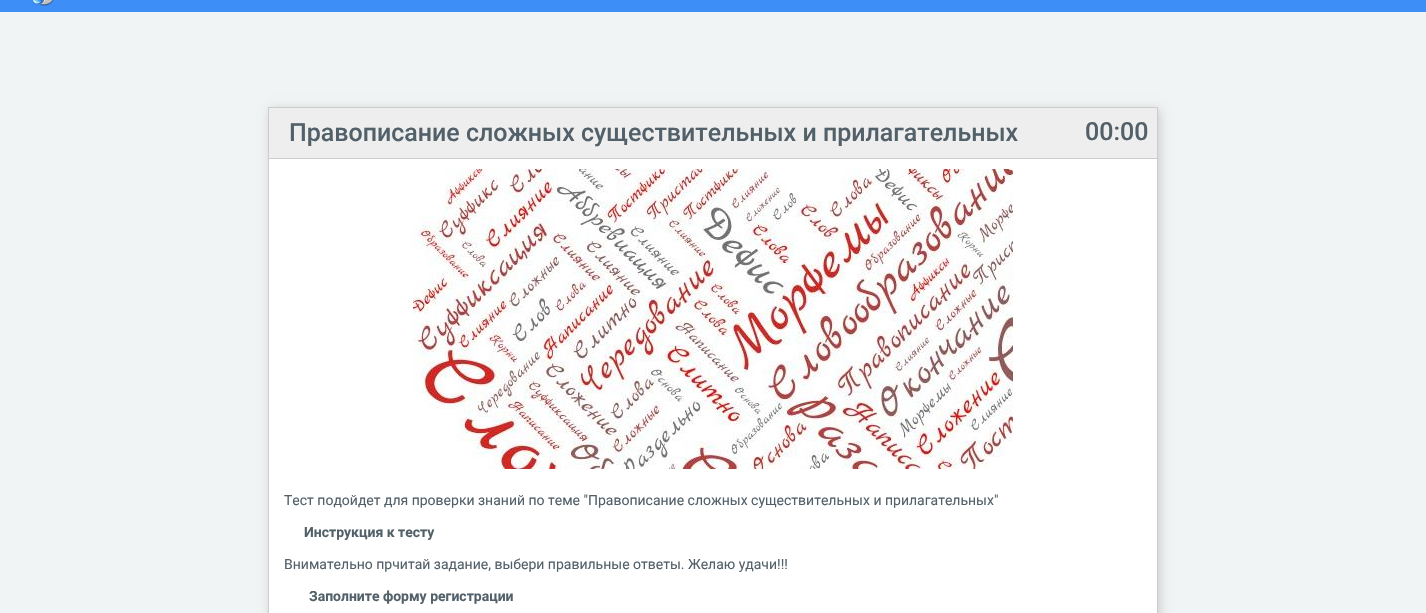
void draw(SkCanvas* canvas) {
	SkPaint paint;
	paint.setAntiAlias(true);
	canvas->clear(0xff3e8ef7);
	canvas->drawImageRect(SkImages::DeferredFromEncodedData(SkData::MakeFromFileName("img1.png")), SkRect::MakeXYWH(32, 0, 22, 6), SkSamplingOptions());
	paint.setColor(0xfff1f4f5);
	canvas->drawRect(SkRect::MakeXYWH(0, 12, 1426, 601), paint);
	paint.setColor(0xffcccccc);
	paint.setMaskFilter(SkMaskFilter::MakeBlur(kNormal_SkBlurStyle, 5));
	canvas->drawRect(SkRect::MakeXYWH(270, 109, 890, 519), paint);
	paint.setMaskFilter(nullptr);
	paint.setColor(0xffffffff);
	canvas->drawRect(SkRect::MakeXYWH(269, 159, 888, 454), paint);
	paint.setStroke(true);
	paint.setStrokeWidth(1);
	paint.setColor(0xffcccccc);
	canvas->drawRect(SkRect::MakeXYWH(268.5, 107.5, 889, 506), paint);
	paint.setStroke(false);
	paint.setColor(0xffeeeeee);
	canvas->drawRect(SkRect::MakeXYWH(269, 108, 888, 50), paint);
	paint.setColor(0xffcccccc);
	canvas->drawRect(SkRect::MakeXYWH(269, 158, 888, 1), paint);
	SkFont f1(fontMgr->matchFamilyStyle("Roboto", SkFontStyle(500, SkFontStyle::kNormal_Width, SkFontStyle::kUpright_Slant)), 25);
	f1.setSubpixel(true);
	paint.setColor(0xff526069);
	canvas->drawString("Правописание сложных существительных и прилагательных", 289, 141, f1, paint);
	canvas->drawString("00:00", 1085, 140, f1, paint);
	canvas->drawImageRect(SkImages::DeferredFromEncodedData(SkData::MakeFromFileName("img2.png")), SkRect::MakeXYWH(413, 169, 600, 300), SkSamplingOptions());
	SkFont f2(fontMgr->matchFamilyStyle("Roboto", SkFontStyle::Normal()), 14);
	f2.setSubpixel(true);
	canvas->drawString("Тест подойдет для проверки знаний по теме \"Правописание сложных существительных и прилагательных\"", 284, 505, f2, paint);
	SkFont f3(fontMgr->matchFamilyStyle("Roboto", SkFontStyle::Bold()), 14);
	f3.setSubpixel(true);
	canvas->drawString("Инструкция к тесту", 304, 537, f3, paint);
	canvas->drawString("Внимательно прчитай задание, выбери правильные ответы. Желаю удачи!!!", 284, 569, f2, paint);
	canvas->drawString("Заполните форму регистрации", 309, 601, f3, paint);
}
